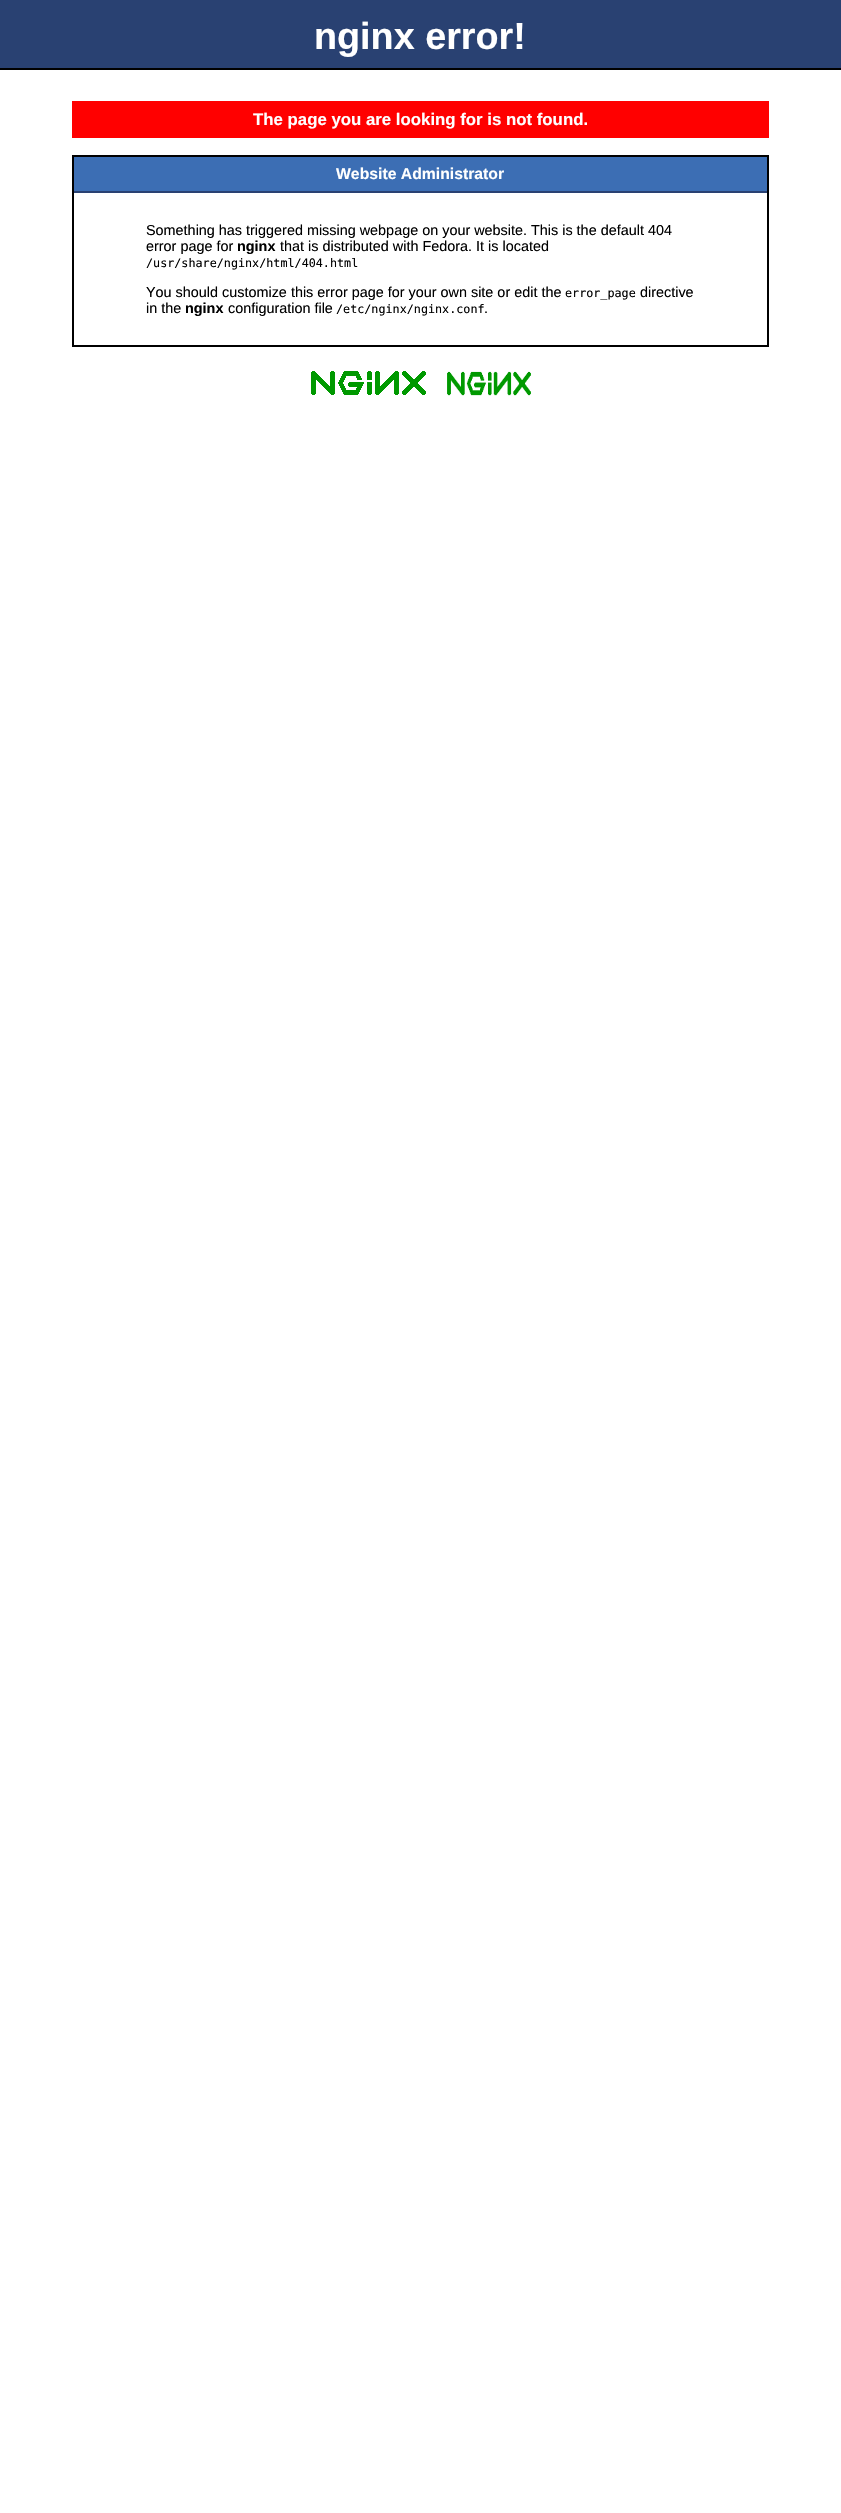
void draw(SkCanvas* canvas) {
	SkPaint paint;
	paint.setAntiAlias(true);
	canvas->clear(0xffffffff);
	paint.setColor(0xff294172);
	canvas->drawRect(SkRect::MakeXYWH(0, 0, 841, 68), paint);
	paint.setColor(0xff000000);
	canvas->drawRect(SkRect::MakeXYWH(0, 68, 841, 2), paint);
	SkFont f1(fontMgr->matchFamilyStyle("Liberation Sans", SkFontStyle::Bold()), 37.75);
	f1.setSubpixel(true);
	paint.setColor(0xffffffff);
	canvas->drawString("nginx error!", 314, 49, f1, paint);
	paint.setColor(0xffff0000);
	canvas->drawRect(SkRect::MakeXYWH(72, 101, 697, 37), paint);
	SkFont f2(fontMgr->matchFamilyStyle("Liberation Sans", SkFontStyle::Bold()), 16.8);
	f2.setSubpixel(true);
	paint.setColor(0xffffffff);
	canvas->drawString("The page you are looking for is not found.", 253, 125, f2, paint);
	paint.setStroke(true);
	paint.setStrokeWidth(2);
	paint.setColor(0xff000000);
	canvas->drawRect(SkRect::MakeXYWH(73, 156, 695, 190), paint);
	paint.setStroke(false);
	paint.setColor(0xff3c6eb4);
	canvas->drawRect(SkRect::MakeXYWH(74, 157, 693, 34), paint);
	paint.setColor(0xff294172);
	canvas->drawRect(SkRect::MakeXYWH(74, 191, 693, 2), paint);
	SkFont f3(fontMgr->matchFamilyStyle("Liberation Sans", SkFontStyle::Bold()), 15.75);
	f3.setSubpixel(true);
	paint.setColor(0xffffffff);
	canvas->drawString("Website Administrator", 336, 179, f3, paint);
	SkFont f4(fontMgr->matchFamilyStyle("Liberation Sans", SkFontStyle::Normal()), 14.4);
	f4.setSubpixel(true);
	paint.setColor(0xff000000);
	canvas->drawString("Something has triggered missing webpage on your website. This is the default 404", 146, 235, f4, paint);
	canvas->drawString("error page for", 146, 251, f4, paint);
	SkFont f5(fontMgr->matchFamilyStyle("Liberation Sans", SkFontStyle::Bold()), 14.4);
	f5.setSubpixel(true);
	canvas->drawString("nginx", 237, 251, f5, paint);
	canvas->drawString("that is distributed with Fedora. It is located", 280, 251, f4, paint);
	SkFont f6(fontMgr->matchFamilyStyle("DejaVu Sans Mono", SkFontStyle::Normal()), 11.75);
	f6.setSubpixel(true);
	canvas->drawString("/usr/share/nginx/html/404.html", 146, 267, f6, paint);
	canvas->drawString("You should customize this error page for your own site or edit the", 146, 297, f4, paint);
	canvas->drawString("error_page", 565, 297, f6, paint);
	canvas->drawString("directive", 640, 297, f4, paint);
	canvas->drawString("in the", 146, 313, f4, paint);
	canvas->drawString("nginx", 185, 313, f5, paint);
	canvas->drawString("configuration file", 228, 313, f4, paint);
	canvas->drawString("/etc/nginx/nginx.conf", 336, 313, f6, paint);
	canvas->drawString(".", 484, 313, f4, paint);
	canvas->drawImageRect(SkImages::DeferredFromEncodedData(SkData::MakeFromFileName("img1.png")), SkRect::MakeXYWH(311, 371, 115, 24), SkSamplingOptions());
	canvas->drawImageRect(SkImages::DeferredFromEncodedData(SkData::MakeFromFileName("img2.png")), SkRect::MakeXYWH(447, 371, 84, 25), SkSamplingOptions());
}
